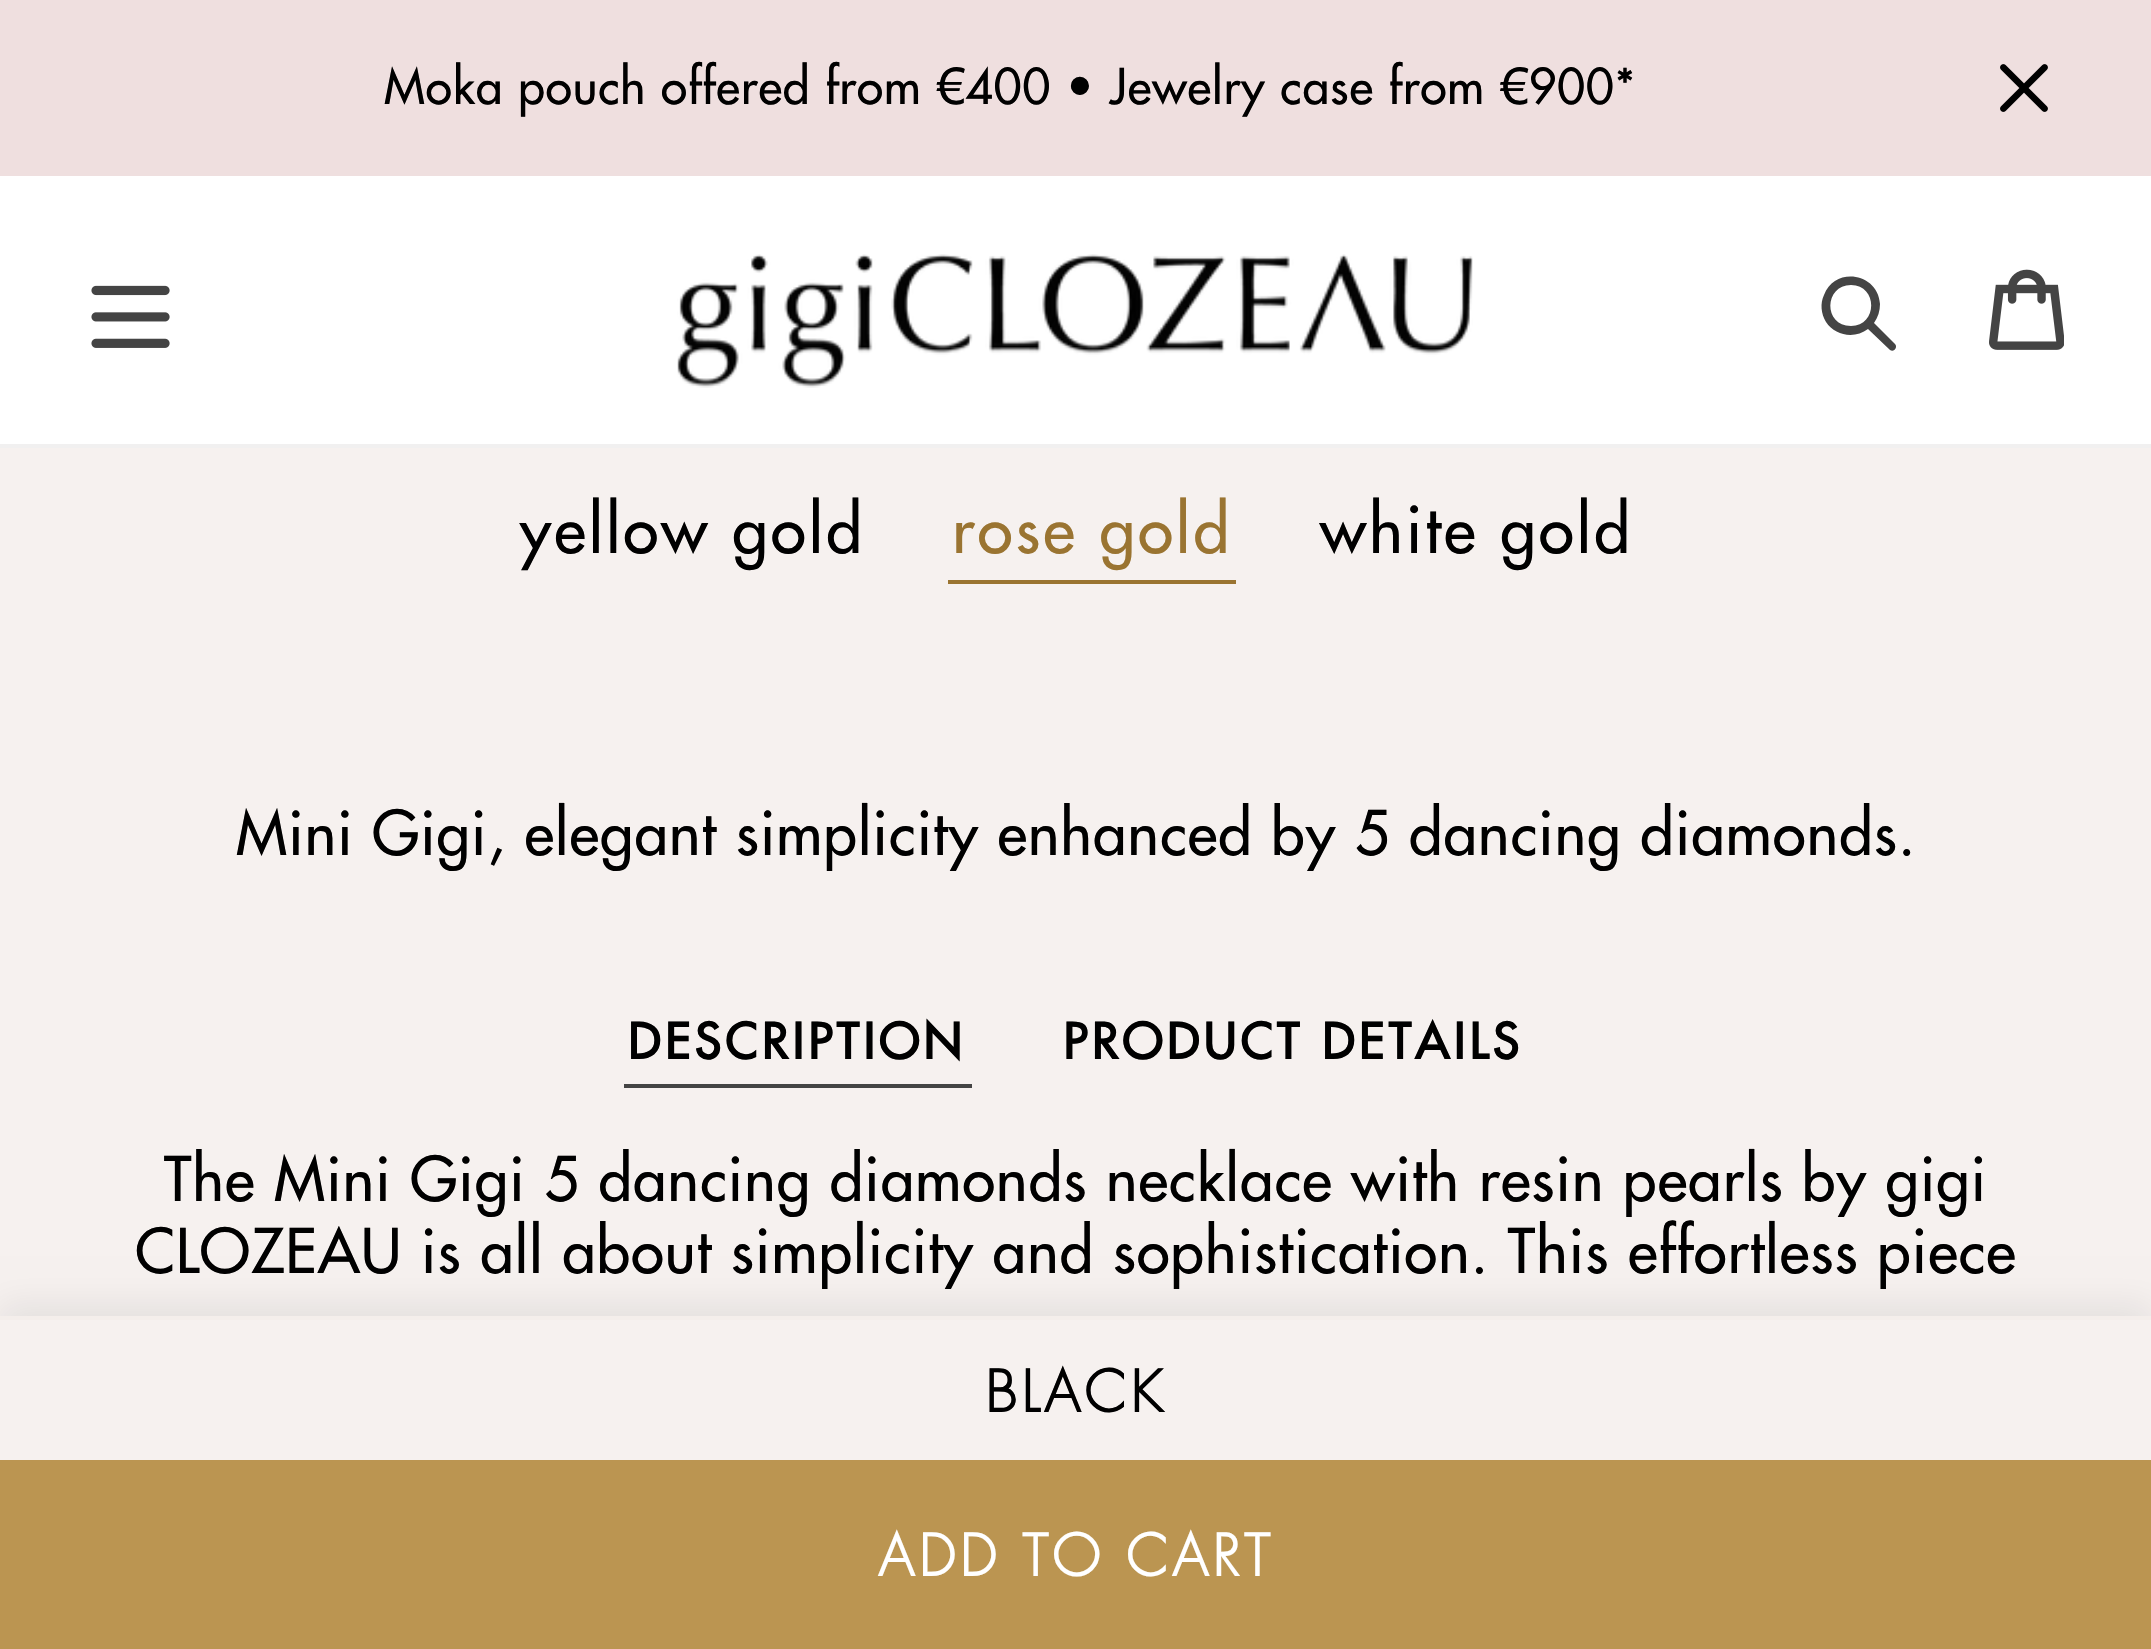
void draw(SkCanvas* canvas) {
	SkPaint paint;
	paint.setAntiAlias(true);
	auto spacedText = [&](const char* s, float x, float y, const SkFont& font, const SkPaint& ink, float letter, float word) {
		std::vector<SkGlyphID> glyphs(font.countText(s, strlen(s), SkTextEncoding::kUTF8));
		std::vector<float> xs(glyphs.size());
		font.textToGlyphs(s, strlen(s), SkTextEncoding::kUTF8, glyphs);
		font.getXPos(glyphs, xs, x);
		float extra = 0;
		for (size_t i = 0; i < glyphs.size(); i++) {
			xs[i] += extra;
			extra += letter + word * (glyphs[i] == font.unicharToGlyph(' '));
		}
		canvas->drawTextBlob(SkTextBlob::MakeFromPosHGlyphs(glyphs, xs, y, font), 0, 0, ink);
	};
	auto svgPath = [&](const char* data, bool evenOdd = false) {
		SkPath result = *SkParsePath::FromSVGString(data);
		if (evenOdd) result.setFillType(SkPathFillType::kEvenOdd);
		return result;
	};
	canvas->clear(0xfff6f1ef);
	paint.setColor(0xffefdfdf);
	canvas->drawRect(SkRect::MakeXYWH(0, 0, 2151, 176), paint);
	SkFont f1(fontMgr->matchFamilyStyle("Futura", SkFontStyle::Normal()), 48);
	f1.setSubpixel(true);
	paint.setColor(0xff000000);
	spacedText("Moka pouch offered from €400 • Jewelry case from €900*", 384, 104, f1, paint, 0.95, 0);
	canvas->drawImageRect(SkImages::DeferredFromEncodedData(SkData::MakeFromFileName("img1.png")), SkRect::MakeXYWH(2000, 64, 48, 48), SkSamplingOptions());
	paint.setColor(0xffffffff);
	canvas->drawRect(SkRect::MakeXYWH(0, 176, 2151, 268), paint);
	paint.setColor(0xfff1f0f0);
	canvas->drawRect(SkRect::MakeXYWH(0, 444, 2151, 4), paint);
	canvas->drawImageRect(SkImages::DeferredFromEncodedData(SkData::MakeFromFileName("img2.png")), SkRect::MakeXYWH(91, 285, 79, 63), SkSamplingOptions());
	canvas->drawImageRect(SkImages::DeferredFromEncodedData(SkData::MakeFromFileName("img3.png")), SkRect::MakeXYWH(677, 254, 796, 134), SkSamplingOptions());
	paint.setColor(0xff444444);
	canvas->drawPath(svgPath("M1895 344L1874 323C1878 317 1880 311 1880 304C1878 273 1835 266 1824 295C1820 303 1821 314 1826 322C1835 336 1855 339 1868 329L1890 350C1894 353 1898 347 1895 344ZM1851 326C1823 326 1824 285 1851 285C1878 285 1878 326 1851 326Z"), paint);
	canvas->drawImageRect(SkImages::DeferredFromEncodedData(SkData::MakeFromFileName("img4.png")), SkRect::MakeXYWH(1989, 269, 75, 81), SkSamplingOptions());
	SkFont f2(fontMgr->matchFamilyStyle("Futura", SkFontStyle::Normal()), 64);
	f2.setSubpixel(true);
	paint.setColor(0xff000000);
	spacedText("yellow gold", 520, 553, f2, paint, 3.25, 0);
	paint.setColor(0xff9a7431);
	canvas->drawRect(SkRect::MakeXYWH(948, 580, 288, 4), paint);
	spacedText("rose gold", 952, 553, f2, paint, 3.25, 0);
	paint.setColor(0xff000000);
	spacedText("white gold", 1320, 553, f2, paint, 3.25, 0);
	paint.setColor(0x12000000);
	paint.setMaskFilter(SkMaskFilter::MakeBlur(kNormal_SkBlurStyle, 16));
	canvas->drawRect(SkRect::MakeXYWH(0, 1304, 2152, 336), paint);
	paint.setMaskFilter(nullptr);
	paint.setColor(0xffbb9551);
	canvas->drawRect(SkRect::MakeXYWH(0, 1460, 2151, 189), paint);
	paint.setColor(0xfff6f1ef);
	canvas->drawRect(SkRect::MakeXYWH(0, 1320, 2151, 140), paint);
	paint.setColor(0xfff4eeeb);
	canvas->drawRect(SkRect::MakeXYWH(0, 1316, 2151, 4), paint);
	SkFont f3(fontMgr->matchFamilyStyle("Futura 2", SkFontStyle::Bold()), 56);
	f3.setSubpixel(true);
	paint.setColor(0xff000000);
	spacedText("BLACK", 985, 1412, f3, paint, 4.5, 0);
	paint.setColor(0xffffffff);
	spacedText("ADD TO CART", 878, 1576, f3, paint, 4.5, 0);
	SkFont f4(fontMgr->matchFamilyStyle("Futura", SkFontStyle::Normal()), 60);
	f4.setSubpixel(true);
	paint.setColor(0xff000000);
	spacedText("Mini Gigi, elegant simplicity enhanced by 5 dancing diamonds.", 236, 855, f4, paint, 1.2, 0);
	paint.setColor(0xff444444);
	canvas->drawRect(SkRect::MakeXYWH(624, 1084, 348, 4), paint);
	SkFont f5(fontMgr->matchFamilyStyle("Futura", SkFontStyle::Bold()), 48);
	f5.setSubpixel(true);
	paint.setColor(0xff000000);
	spacedText("DESCRIPTION", 628, 1059, f5, paint, 4.75, 0);
	spacedText("PRODUCT DETAILS", 1063, 1059, f5, paint, 4.75, 0);
	spacedText("The Mini Gigi 5 dancing diamonds necklace with resin pearls by gigi", 164, 1201, f4, paint, 1.2, 0);
	spacedText("CLOZEAU is all about simplicity and sophistication. This effortless piece", 135, 1273, f4, paint, 1.2, 0);
}
